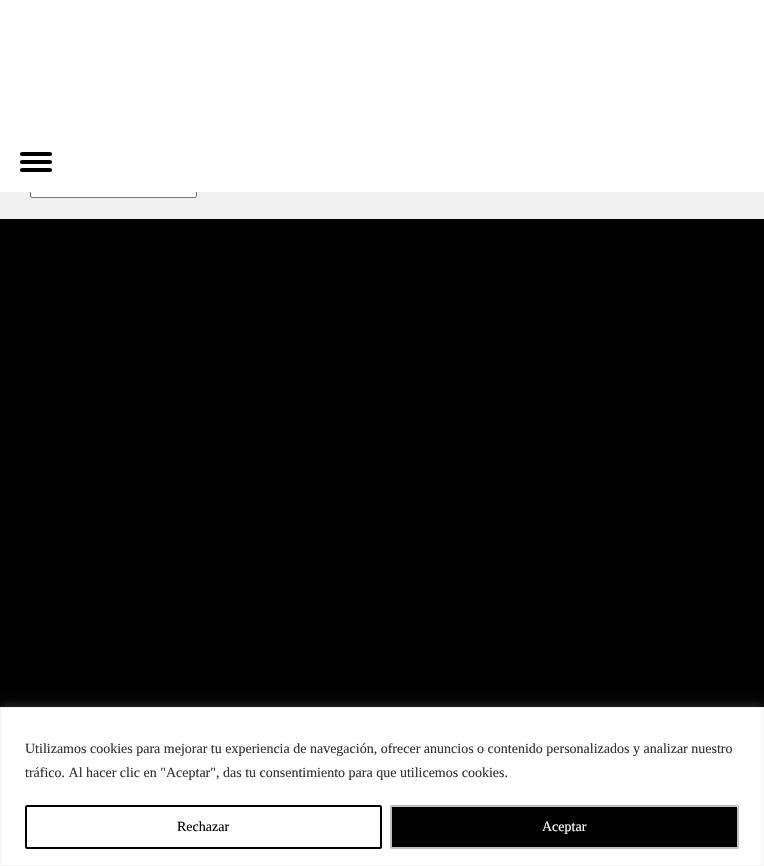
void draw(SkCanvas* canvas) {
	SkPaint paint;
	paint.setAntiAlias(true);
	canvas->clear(0xfff0f0f0);
	paint.setColor(0xffffffff);
	canvas->drawRoundRect(SkRect::MakeXYWH(30.5, 169.5, 166, 28), 1.5, 1.5, paint);
	paint.setStroke(true);
	paint.setStrokeWidth(1);
	paint.setColor(0xff767676);
	canvas->drawRoundRect(SkRect::MakeXYWH(30.5, 169.5, 166, 28), 1.5, 1.5, paint);
	paint.setStroke(false);
	paint.setColor(0xffffffff);
	canvas->drawRect(SkRect::MakeXYWH(0, 0, 764, 192), paint);
	paint.setColor(0xff000000);
	canvas->drawRoundRect(SkRect::MakeXYWH(20, 152, 32, 4), 2, 2, paint);
	canvas->drawRoundRect(SkRect::MakeXYWH(20, 160, 32, 4), 2, 2, paint);
	canvas->drawRoundRect(SkRect::MakeXYWH(20, 168, 32, 4), 2, 2, paint);
	canvas->drawRect(SkRect::MakeXYWH(0, 219, 764, 488), paint);
	paint.setColor(0x4dacabab);
	paint.setMaskFilter(SkMaskFilter::MakeBlur(kNormal_SkBlurStyle, 5));
	canvas->drawRect(SkRect::MakeXYWH(0, 706, 764, 159), paint);
	paint.setMaskFilter(nullptr);
	paint.setColor(0xffffffff);
	canvas->drawRect(SkRect::MakeXYWH(0.5, 707.5, 763, 158), paint);
	paint.setStroke(true);
	paint.setColor(0xfff4f4f4);
	canvas->drawRect(SkRect::MakeXYWH(0.5, 707.5, 763, 158), paint);
	SkFont f1(fontMgr->matchFamilyStyle("Liberation Serif", SkFontStyle::Normal()), 14);
	f1.setSubpixel(true);
	paint.setStroke(false);
	paint.setColor(0xff313131);
	canvas->drawString("Utilizamos cookies para mejorar tu experiencia de navegación, ofrecer anuncios o contenido personalizados y analizar nuestro", 25, 753, f1, paint);
	canvas->drawString("tráfico. Al hacer clic en \"Aceptar\", das tu consentimiento para que utilicemos cookies.", 25, 777, f1, paint);
	paint.setStroke(true);
	paint.setStrokeWidth(2);
	paint.setColor(0xff000000);
	canvas->drawRoundRect(SkRect::MakeXYWH(26, 806, 355, 42), 1, 1, paint);
	paint.setStroke(false);
	canvas->drawString("Rechazar", 177, 831, f1, paint);
	canvas->drawRoundRect(SkRect::MakeXYWH(391, 806, 347, 42), 1, 1, paint);
	paint.setStroke(true);
	paint.setColor(0xffc0c0c0);
	canvas->drawRoundRect(SkRect::MakeXYWH(391, 806, 347, 42), 1, 1, paint);
	paint.setStroke(false);
	paint.setColor(0xffffffff);
	canvas->drawString("Aceptar", 542, 831, f1, paint);
}
